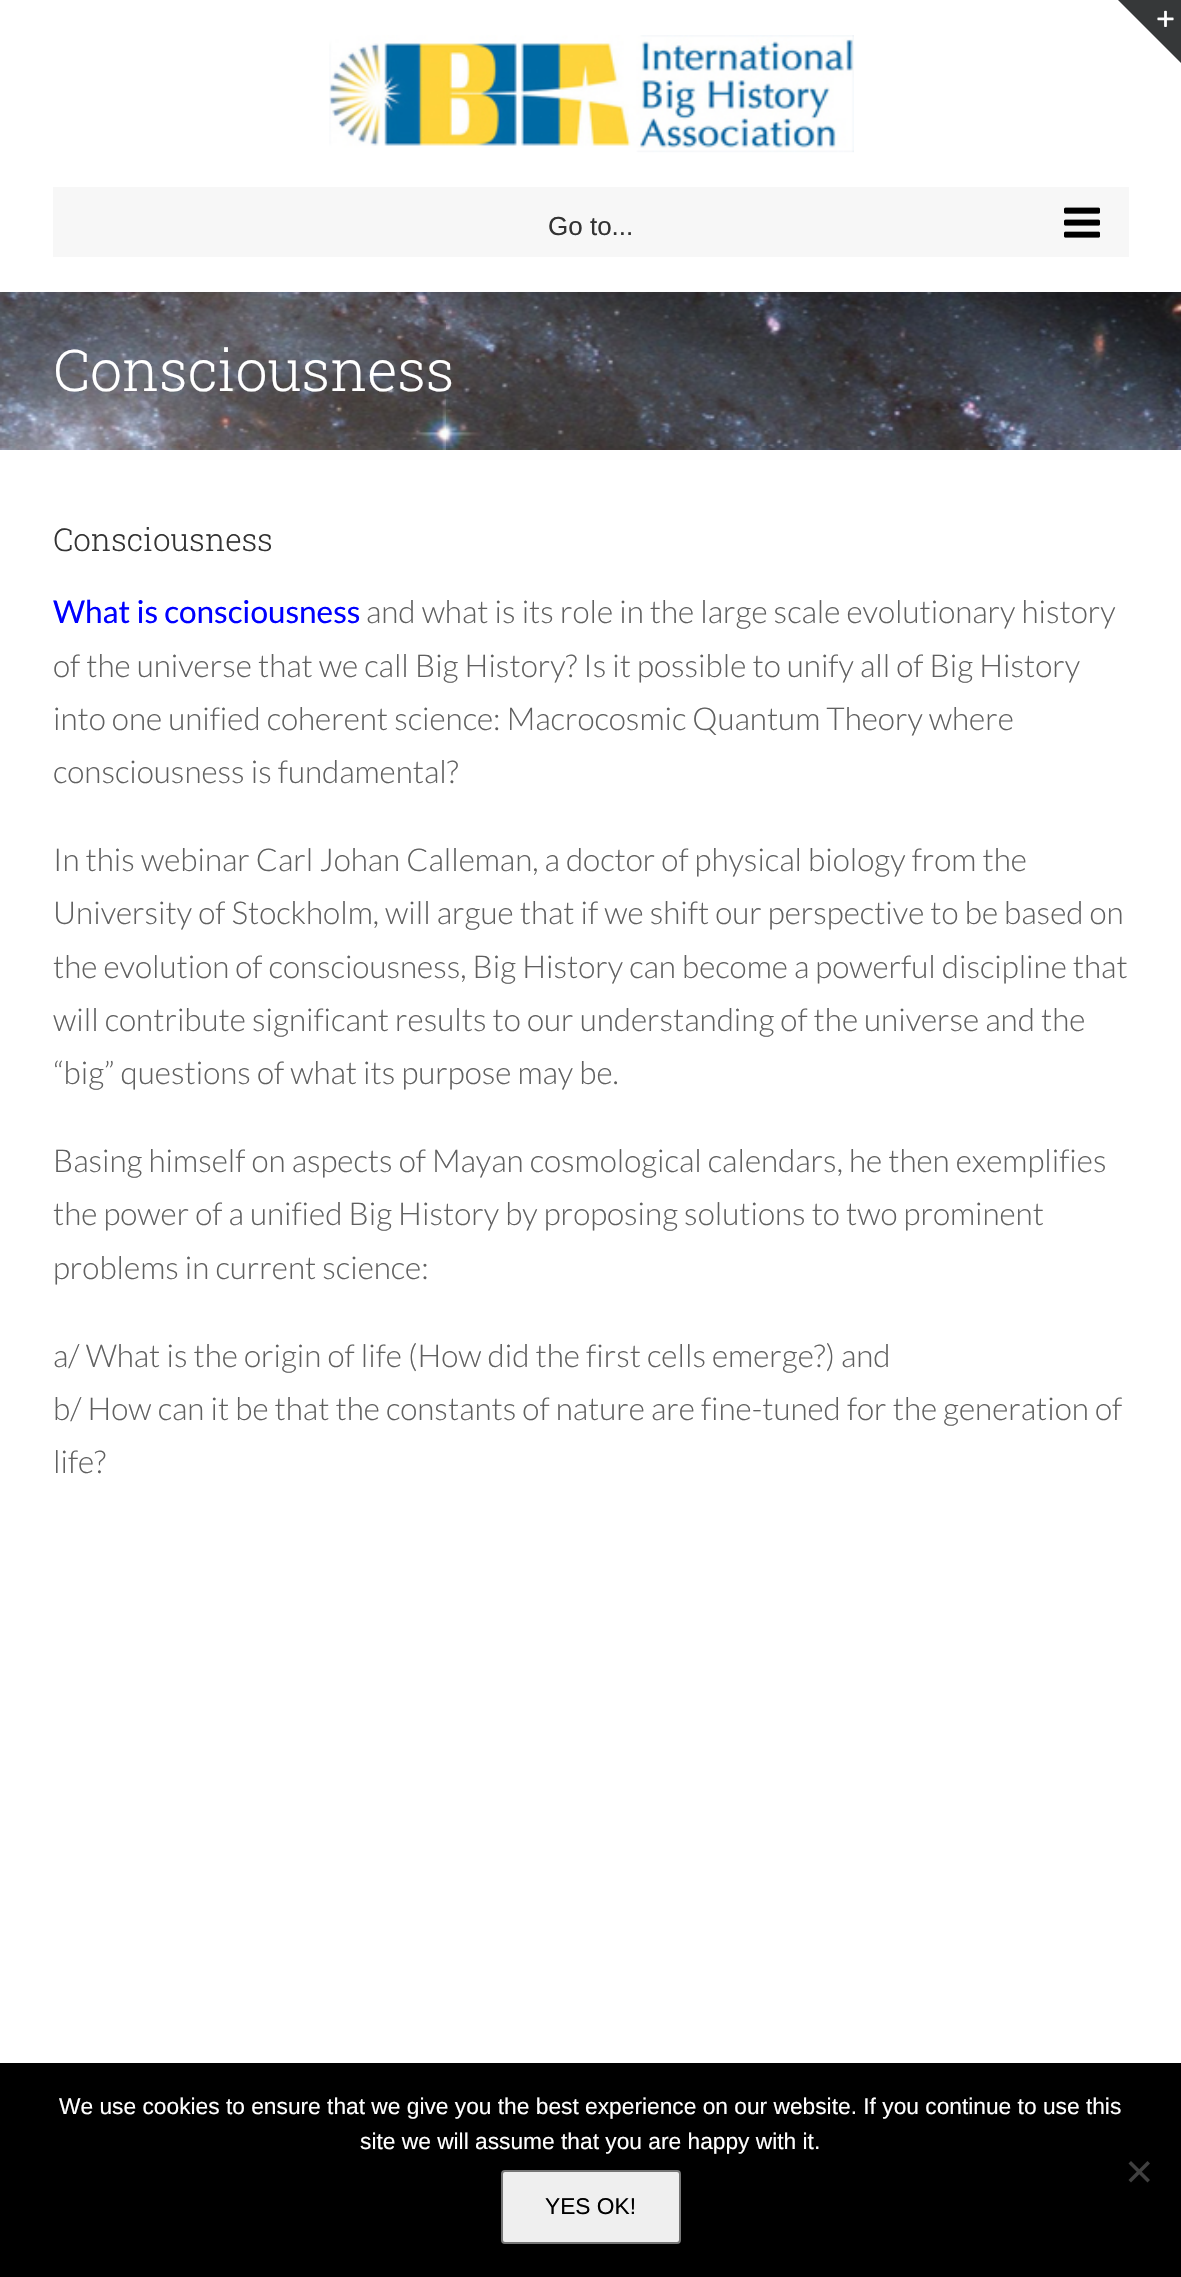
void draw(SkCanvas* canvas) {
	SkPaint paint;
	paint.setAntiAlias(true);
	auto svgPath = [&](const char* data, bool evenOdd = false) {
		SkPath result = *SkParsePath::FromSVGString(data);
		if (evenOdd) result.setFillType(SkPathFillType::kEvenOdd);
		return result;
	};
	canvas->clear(0xffffffff);
	canvas->drawImageRect(SkImages::DeferredFromEncodedData(SkData::MakeFromFileName("img4.png")), SkRect::MakeXYWH(0, 292, 1181, 158), SkSamplingOptions());
	canvas->save();
	canvas->clipRect(SkRect::MakeXYWH(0, 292, 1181, 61));
	paint.setColor(0x24000000);
	paint.setMaskFilter(SkMaskFilter::MakeBlur(kNormal_SkBlurStyle, 44));
	canvas->drawRect(SkRect::MakeXYWH(4, 21, 1174, 285), paint);
	paint.setMaskFilter(nullptr);
	canvas->restore();
	paint.setColor(0xff363839);
	canvas->drawPath(svgPath("M1118 0H1181V63Z"), paint);
	canvas->drawImageRect(SkImages::DeferredFromEncodedData(SkData::MakeFromFileName("img1.png")), SkRect::MakeXYWH(1157, 10, 17, 17), SkSamplingOptions());
	canvas->drawImageRect(SkImages::DeferredFromEncodedData(SkData::MakeFromFileName("img2.png")), SkRect::MakeXYWH(329, 35, 525, 118), SkSamplingOptions());
	paint.setColor(0xfff7f7f7);
	canvas->drawRect(SkRect::MakeXYWH(53, 187, 1076, 70), paint);
	SkFont f1(fontMgr->matchFamilyStyle("Liberation Sans", SkFontStyle::Normal()), 26);
	f1.setSubpixel(true);
	paint.setColor(0xff333333);
	canvas->drawString("Go to...", 548, 235, f1, paint);
	canvas->drawImageRect(SkImages::DeferredFromEncodedData(SkData::MakeFromFileName("img3.png")), SkRect::MakeXYWH(1064, 207, 36, 31), SkSamplingOptions());
	SkFont f2(fontMgr->matchFamilyStyle("Roboto Slab", SkFontStyle(300, SkFontStyle::kNormal_Width, SkFontStyle::kUpright_Slant)), 57.5);
	f2.setSubpixel(true);
	paint.setColor(0xffffffff);
	canvas->drawString("Consciousness", 53, 391, f2, paint);
	SkFont f3(fontMgr->matchFamilyStyle("Roboto Slab", SkFontStyle(300, SkFontStyle::kNormal_Width, SkFontStyle::kUpright_Slant)), 31.5);
	f3.setSubpixel(true);
	paint.setColor(0xff333333);
	canvas->drawString("Consciousness", 53, 551, f3, paint);
	SkFont f4(fontMgr->matchFamilyStyle("Lato", SkFontStyle::Normal()), 31.5);
	f4.setSubpixel(true);
	paint.setColor(0xff0000ff);
	canvas->drawString("What is consciousness", 53, 623, f4, paint);
	SkFont f5(fontMgr->matchFamilyStyle("Lato", SkFontStyle(300, SkFontStyle::kNormal_Width, SkFontStyle::kUpright_Slant)), 31.5);
	f5.setSubpixel(true);
	paint.setColor(0xff606060);
	canvas->drawString("and what is its role in the large scale evolutionary history", 366, 623, f5, paint);
	canvas->drawString("of the universe that we call Big History? Is it possible to unify all of Big History", 53, 677, f5, paint);
	canvas->drawString("into one unified coherent science: Macrocosmic Quantum Theory where", 53, 730, f5, paint);
	canvas->drawString("consciousness is fundamental?", 53, 783, f5, paint);
	canvas->drawString("In this webinar Carl Johan Calleman, a doctor of physical biology from the", 53, 871, f5, paint);
	canvas->drawString("University of Stockholm, will argue that if we shift our perspective to be based on", 53, 924, f5, paint);
	canvas->drawString("the evolution of consciousness, Big History can become a powerful discipline that", 53, 978, f5, paint);
	canvas->drawString("will contribute significant results to our understanding of the universe and the", 53, 1031, f5, paint);
	canvas->drawString("“big” questions of what its purpose may be.", 53, 1084, f5, paint);
	canvas->drawString("Basing himself on aspects of Mayan cosmological calendars, he then exemplifies", 53, 1172, f5, paint);
	canvas->drawString("the power of a unified Big History by proposing solutions to two prominent", 53, 1225, f5, paint);
	canvas->drawString("problems in current science:", 53, 1279, f5, paint);
	canvas->drawString("a/ What is the origin of life (How did the first cells emerge?) and", 53, 1367, f5, paint);
	canvas->drawString("b/ How can it be that the constants of nature are fine-tuned for the generation of", 53, 1420, f5, paint);
	canvas->drawString("life?", 53, 1473, f5, paint);
	paint.setColor(0xff000000);
	canvas->drawRect(SkRect::MakeXYWH(0, 2063, 1181, 214), paint);
	SkFont f6(fontMgr->matchFamilyStyle("Liberation Sans", SkFontStyle::Normal()), 22.75);
	f6.setSubpixel(true);
	paint.setColor(0xffffffff);
	canvas->drawString("We use cookies to ensure that we give you the best experience on our website. If you continue to use this", 59, 2114, f6, paint);
	canvas->drawString("site we will assume that you are happy with it.", 360, 2149, f6, paint);
	paint.setColor(0xff404040);
	canvas->drawPath(svgPath("M1147.5 2161L1150 2163.5L1131 2182.5L1128.5 2180Z"), paint);
	canvas->drawPath(svgPath("M1128.5 2163.5L1131 2161L1150 2180L1147.5 2182.5Z"), paint);
	paint.setColor(0xffefefef);
	canvas->drawRoundRect(SkRect::MakeXYWH(502, 2171, 178, 72), 3, 3, paint);
	paint.setStroke(true);
	paint.setStrokeWidth(2);
	paint.setColor(0xff767676);
	canvas->drawRoundRect(SkRect::MakeXYWH(502, 2171, 178, 72), 3, 3, paint);
	paint.setStroke(false);
	paint.setColor(0xff000000);
	canvas->drawString("YES OK!", 545, 2214, f6, paint);
}
